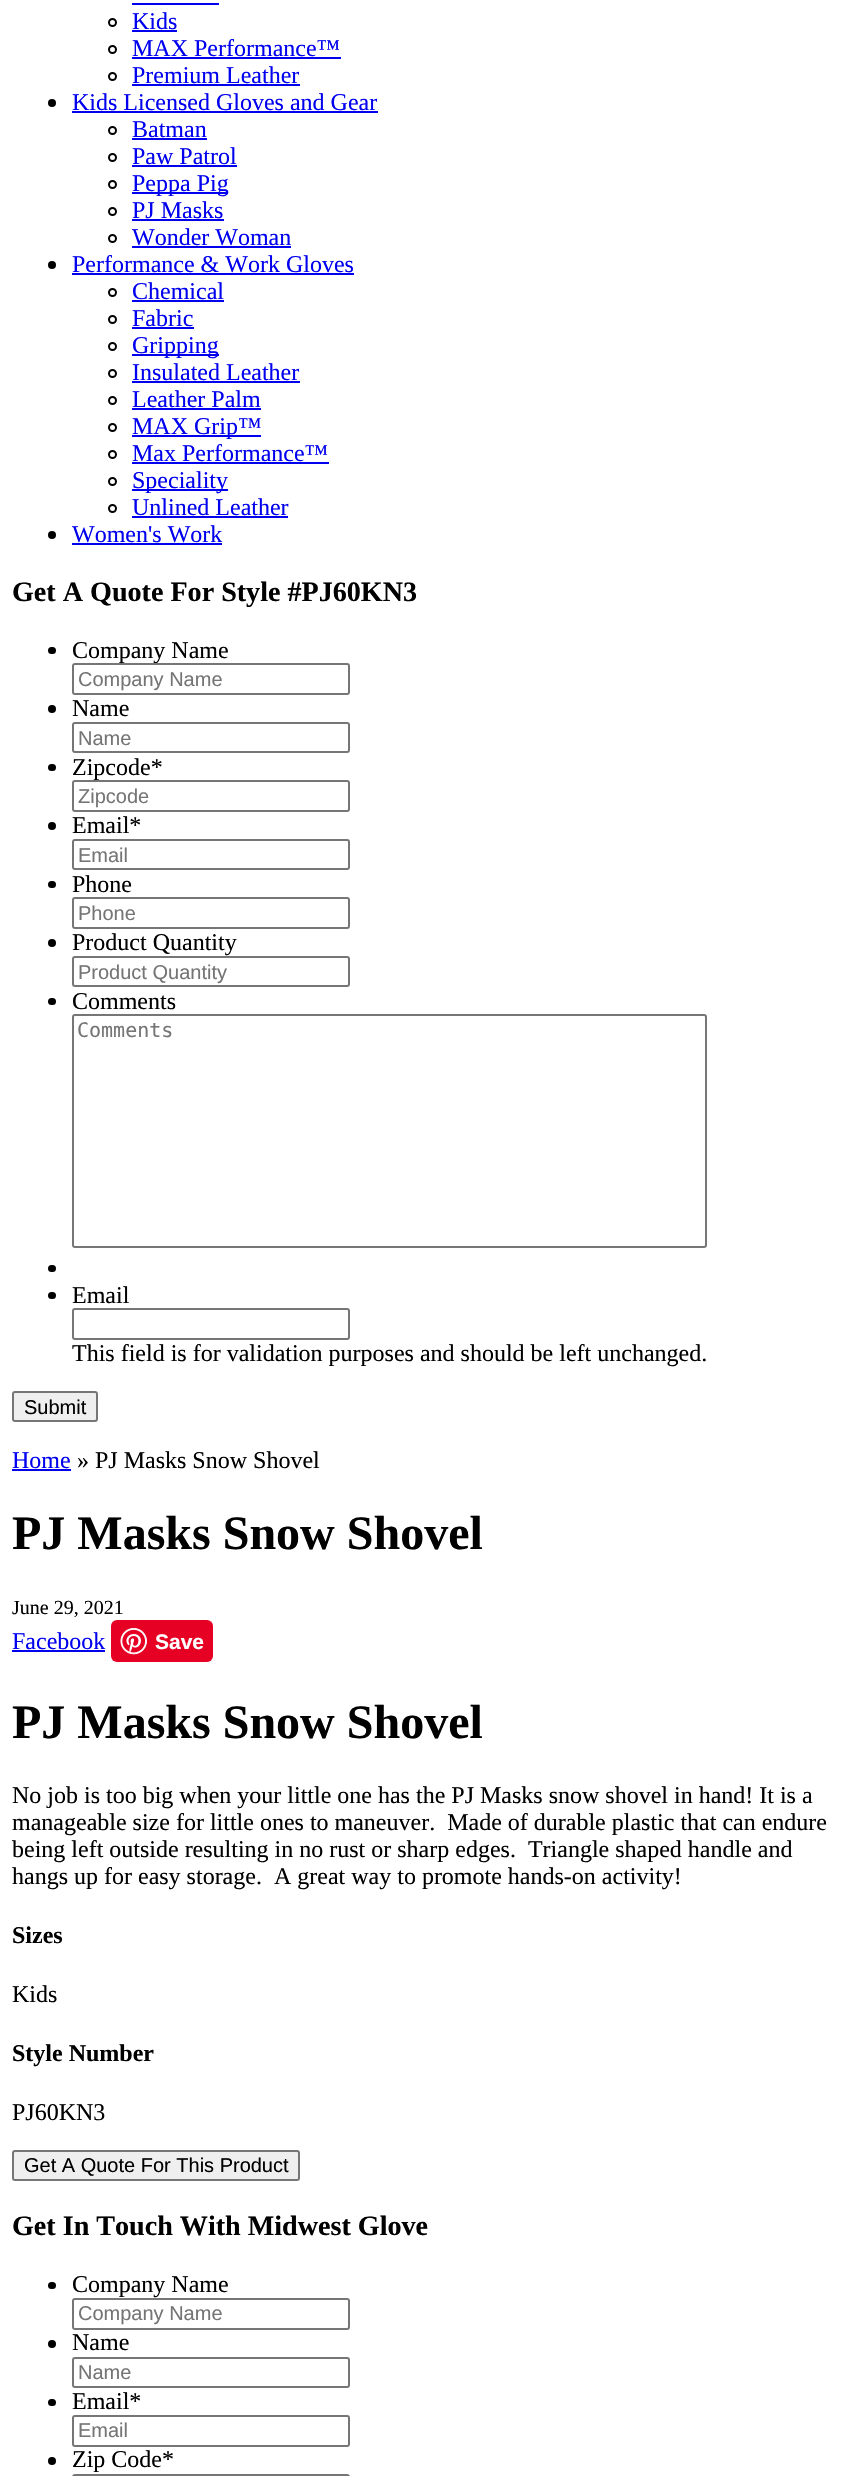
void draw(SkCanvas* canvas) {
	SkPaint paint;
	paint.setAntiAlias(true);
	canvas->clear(0xffffffff);
	paint.setColor(0xff0000ee);
	canvas->drawRect(SkRect::MakeXYWH(132, 3, 87, 2), paint);
	paint.setStroke(true);
	paint.setStrokeWidth(2);
	paint.setColor(0xff000000);
	canvas->drawCircle(112.5, 22.5, 3.5, paint);
	SkFont f1(fontMgr->matchFamilyStyle("Liberation Serif", SkFontStyle::Normal()), 24);
	f1.setSubpixel(true);
	paint.setStroke(false);
	paint.setColor(0xff0000ee);
	canvas->drawString("Kids", 132, 29, f1, paint);
	canvas->drawRect(SkRect::MakeXYWH(132, 30, 45, 2), paint);
	paint.setStroke(true);
	paint.setColor(0xff000000);
	canvas->drawCircle(112.5, 49.5, 3.5, paint);
	paint.setStroke(false);
	paint.setColor(0xff0000ee);
	canvas->drawString("MAX Performance™", 132, 56, f1, paint);
	canvas->drawRect(SkRect::MakeXYWH(132, 57, 209, 2), paint);
	paint.setStroke(true);
	paint.setColor(0xff000000);
	canvas->drawCircle(112.5, 76.5, 3.5, paint);
	paint.setStroke(false);
	paint.setColor(0xff0000ee);
	canvas->drawString("Premium Leather", 132, 83, f1, paint);
	canvas->drawRect(SkRect::MakeXYWH(132, 84, 168, 2), paint);
	paint.setColor(0xff000000);
	canvas->drawCircle(52, 103, 4, paint);
	paint.setColor(0xff0000ee);
	canvas->drawString("Kids Licensed Gloves and Gear", 72, 110, f1, paint);
	canvas->drawRect(SkRect::MakeXYWH(72, 111, 306, 2), paint);
	paint.setStroke(true);
	paint.setColor(0xff000000);
	canvas->drawCircle(112.5, 130.5, 3.5, paint);
	paint.setStroke(false);
	paint.setColor(0xff0000ee);
	canvas->drawString("Batman", 132, 137, f1, paint);
	canvas->drawRect(SkRect::MakeXYWH(132, 138, 75, 2), paint);
	paint.setStroke(true);
	paint.setColor(0xff000000);
	canvas->drawCircle(112.5, 157.5, 3.5, paint);
	paint.setStroke(false);
	paint.setColor(0xff0000ee);
	canvas->drawString("Paw Patrol", 132, 164, f1, paint);
	canvas->drawRect(SkRect::MakeXYWH(132, 165, 105, 2), paint);
	paint.setStroke(true);
	paint.setColor(0xff000000);
	canvas->drawCircle(112.5, 184.5, 3.5, paint);
	paint.setStroke(false);
	paint.setColor(0xff0000ee);
	canvas->drawRect(SkRect::MakeXYWH(132, 192, 96, 2), paint);
	canvas->drawString("Peppa Pig", 132, 191, f1, paint);
	paint.setStroke(true);
	paint.setColor(0xff000000);
	canvas->drawCircle(112.5, 211.5, 3.5, paint);
	paint.setStroke(false);
	paint.setColor(0xff0000ee);
	canvas->drawString("PJ Masks", 132, 218, f1, paint);
	canvas->drawRect(SkRect::MakeXYWH(132, 219, 92, 2), paint);
	paint.setStroke(true);
	paint.setColor(0xff000000);
	canvas->drawCircle(112.5, 238.5, 3.5, paint);
	paint.setStroke(false);
	paint.setColor(0xff0000ee);
	canvas->drawString("Wonder Woman", 132, 245, f1, paint);
	canvas->drawRect(SkRect::MakeXYWH(132, 246, 159, 2), paint);
	paint.setColor(0xff000000);
	canvas->drawCircle(52, 265, 4, paint);
	paint.setColor(0xff0000ee);
	canvas->drawString("Performance & Work Gloves", 72, 272, f1, paint);
	canvas->drawRect(SkRect::MakeXYWH(72, 273, 282, 2), paint);
	paint.setStroke(true);
	paint.setColor(0xff000000);
	canvas->drawCircle(112.5, 292.5, 3.5, paint);
	paint.setStroke(false);
	paint.setColor(0xff0000ee);
	canvas->drawString("Chemical", 132, 299, f1, paint);
	canvas->drawRect(SkRect::MakeXYWH(132, 300, 92, 2), paint);
	paint.setStroke(true);
	paint.setColor(0xff000000);
	canvas->drawCircle(112.5, 319.5, 3.5, paint);
	paint.setStroke(false);
	paint.setColor(0xff0000ee);
	canvas->drawString("Fabric", 132, 326, f1, paint);
	canvas->drawRect(SkRect::MakeXYWH(132, 327, 62, 2), paint);
	paint.setStroke(true);
	paint.setColor(0xff000000);
	canvas->drawCircle(112.5, 346.5, 3.5, paint);
	paint.setStroke(false);
	paint.setColor(0xff0000ee);
	canvas->drawRect(SkRect::MakeXYWH(132, 354, 87, 2), paint);
	canvas->drawString("Gripping", 132, 353, f1, paint);
	paint.setStroke(true);
	paint.setColor(0xff000000);
	canvas->drawCircle(112.5, 373.5, 3.5, paint);
	paint.setStroke(false);
	paint.setColor(0xff0000ee);
	canvas->drawString("Insulated Leather", 132, 380, f1, paint);
	canvas->drawRect(SkRect::MakeXYWH(132, 381, 168, 2), paint);
	paint.setStroke(true);
	paint.setColor(0xff000000);
	canvas->drawCircle(112.5, 400.5, 3.5, paint);
	paint.setStroke(false);
	paint.setColor(0xff0000ee);
	canvas->drawString("Leather Palm", 132, 407, f1, paint);
	canvas->drawRect(SkRect::MakeXYWH(132, 408, 129, 2), paint);
	paint.setStroke(true);
	paint.setColor(0xff000000);
	canvas->drawCircle(112.5, 427.5, 3.5, paint);
	paint.setStroke(false);
	paint.setColor(0xff0000ee);
	canvas->drawRect(SkRect::MakeXYWH(132, 435, 129, 2), paint);
	canvas->drawString("MAX Grip™", 132, 434, f1, paint);
	paint.setStroke(true);
	paint.setColor(0xff000000);
	canvas->drawCircle(112.5, 454.5, 3.5, paint);
	paint.setStroke(false);
	paint.setColor(0xff0000ee);
	canvas->drawString("Max Performance™", 132, 461, f1, paint);
	canvas->drawRect(SkRect::MakeXYWH(132, 462, 197, 2), paint);
	paint.setStroke(true);
	paint.setColor(0xff000000);
	canvas->drawCircle(112.5, 481.5, 3.5, paint);
	paint.setStroke(false);
	paint.setColor(0xff0000ee);
	canvas->drawRect(SkRect::MakeXYWH(132, 489, 96, 2), paint);
	canvas->drawString("Speciality", 132, 488, f1, paint);
	paint.setStroke(true);
	paint.setColor(0xff000000);
	canvas->drawCircle(112.5, 508.5, 3.5, paint);
	paint.setStroke(false);
	paint.setColor(0xff0000ee);
	canvas->drawString("Unlined Leather", 132, 515, f1, paint);
	canvas->drawRect(SkRect::MakeXYWH(132, 516, 156, 2), paint);
	paint.setColor(0xff000000);
	canvas->drawCircle(52, 535, 4, paint);
	paint.setColor(0xff0000ee);
	canvas->drawString("Women's Work", 72, 542, f1, paint);
	canvas->drawRect(SkRect::MakeXYWH(72, 543, 150, 2), paint);
	SkFont f2(fontMgr->matchFamilyStyle("Liberation Serif", SkFontStyle::Bold()), 28.1);
	f2.setSubpixel(true);
	paint.setColor(0xff000000);
	canvas->drawString("Get A Quote For Style #PJ60KN3", 12, 601, f2, paint);
	canvas->drawRoundRect(SkRect::MakeXYWH(48, 647, 8, 7), 3.5, 3.5, paint);
	canvas->drawString("Company Name", 72, 658, f1, paint);
	paint.setColor(0xffffffff);
	canvas->drawRoundRect(SkRect::MakeXYWH(73, 664, 276, 30), 2, 2, paint);
	paint.setStroke(true);
	paint.setColor(0xff767676);
	canvas->drawRoundRect(SkRect::MakeXYWH(73, 664, 276, 30), 2, 2, paint);
	SkFont f3(fontMgr->matchFamilyStyle("Liberation Sans", SkFontStyle::Normal()), 20);
	f3.setSubpixel(true);
	paint.setStroke(false);
	paint.setColor(0xff757575);
	canvas->drawString("Company Name", 78, 686, f3, paint);
	paint.setColor(0xff000000);
	canvas->drawCircle(52, 709, 4, paint);
	canvas->drawString("Name", 72, 716, f1, paint);
	paint.setStroke(true);
	paint.setColor(0xff767676);
	canvas->drawRoundRect(SkRect::MakeXYWH(73, 723, 276, 29), 2, 2, paint);
	paint.setStroke(false);
	paint.setColor(0xff757575);
	canvas->drawString("Name", 78, 745, f3, paint);
	paint.setColor(0xff000000);
	canvas->drawRoundRect(SkRect::MakeXYWH(48, 764, 8, 7), 3.5, 3.5, paint);
	canvas->drawString("Zipcode*", 72, 775, f1, paint);
	paint.setColor(0xffffffff);
	canvas->drawRoundRect(SkRect::MakeXYWH(73, 781, 276, 30), 2, 2, paint);
	paint.setStroke(true);
	paint.setColor(0xff767676);
	canvas->drawRoundRect(SkRect::MakeXYWH(73, 781, 276, 30), 2, 2, paint);
	paint.setStroke(false);
	paint.setColor(0xff757575);
	canvas->drawString("Zipcode", 78, 803, f3, paint);
	paint.setColor(0xff000000);
	canvas->drawCircle(52, 826, 4, paint);
	canvas->drawString("Email*", 72, 833, f1, paint);
	paint.setStroke(true);
	paint.setColor(0xff767676);
	canvas->drawRoundRect(SkRect::MakeXYWH(73, 840, 276, 29), 2, 2, paint);
	paint.setStroke(false);
	paint.setColor(0xff757575);
	canvas->drawString("Email", 78, 862, f3, paint);
	paint.setColor(0xff000000);
	canvas->drawRoundRect(SkRect::MakeXYWH(48, 881, 8, 7), 3.5, 3.5, paint);
	canvas->drawString("Phone", 72, 892, f1, paint);
	paint.setStroke(true);
	paint.setColor(0xff767676);
	canvas->drawRoundRect(SkRect::MakeXYWH(73, 898, 276, 30), 2, 2, paint);
	paint.setStroke(false);
	paint.setColor(0xff757575);
	canvas->drawString("Phone", 78, 920, f3, paint);
	paint.setColor(0xff000000);
	canvas->drawCircle(52, 943, 4, paint);
	canvas->drawString("Product Quantity", 72, 950, f1, paint);
	paint.setStroke(true);
	paint.setColor(0xff767676);
	canvas->drawRoundRect(SkRect::MakeXYWH(73, 957, 276, 29), 2, 2, paint);
	paint.setStroke(false);
	paint.setColor(0xff757575);
	canvas->drawString("Product Quantity", 78, 979, f3, paint);
	paint.setColor(0xff000000);
	canvas->drawRoundRect(SkRect::MakeXYWH(48, 998, 8, 7), 3.5, 3.5, paint);
	canvas->drawString("Comments", 72, 1009, f1, paint);
	paint.setStroke(true);
	paint.setColor(0xff767676);
	canvas->drawRoundRect(SkRect::MakeXYWH(73, 1015, 633, 232), 2, 2, paint);
	SkFont f4(fontMgr->matchFamilyStyle("DejaVu Sans Mono", SkFontStyle::Normal()), 20);
	f4.setSubpixel(true);
	paint.setStroke(false);
	paint.setColor(0xff757575);
	canvas->drawString("Comments", 77, 1037, f4, paint);
	paint.setColor(0xff000000);
	canvas->drawRoundRect(SkRect::MakeXYWH(48, 1265, 8, 7), 3.5, 3.5, paint);
	canvas->drawRoundRect(SkRect::MakeXYWH(48, 1292, 8, 7), 3.5, 3.5, paint);
	canvas->drawString("Email", 72, 1303, f1, paint);
	paint.setStroke(true);
	paint.setColor(0xff767676);
	canvas->drawRoundRect(SkRect::MakeXYWH(73, 1309, 276, 30), 2, 2, paint);
	paint.setStroke(false);
	paint.setColor(0xff000000);
	canvas->drawString("This field is for validation purposes and should be left unchanged.", 72, 1361, f1, paint);
	paint.setColor(0xffefefef);
	canvas->drawRoundRect(SkRect::MakeXYWH(13, 1392, 84, 29), 2, 2, paint);
	paint.setStroke(true);
	paint.setColor(0xff767676);
	canvas->drawRoundRect(SkRect::MakeXYWH(13, 1392, 84, 29), 2, 2, paint);
	paint.setStroke(false);
	paint.setColor(0xff000000);
	canvas->drawString("Submit", 24, 1414, f3, paint);
	paint.setColor(0xff0000ee);
	canvas->drawString("Home", 12, 1468, f1, paint);
	canvas->drawRect(SkRect::MakeXYWH(12, 1469, 59, 2), paint);
	paint.setColor(0xff000000);
	canvas->drawString("» PJ Masks Snow Shovel", 77, 1468, f1, paint);
	SkFont f5(fontMgr->matchFamilyStyle("Liberation Serif", SkFontStyle::Bold()), 48);
	f5.setSubpixel(true);
	canvas->drawString("PJ Masks Snow Shovel", 12, 1549, f5, paint);
	SkFont f6(fontMgr->matchFamilyStyle("Liberation Serif", SkFontStyle::Normal()), 20);
	f6.setSubpixel(true);
	canvas->drawString("June 29, 2021", 12, 1614, f6, paint);
	paint.setColor(0xff0000ee);
	canvas->drawString("Facebook", 12, 1649, f1, paint);
	canvas->drawRect(SkRect::MakeXYWH(12, 1650, 93, 2), paint);
	paint.setColor(0xffe60023);
	canvas->drawRoundRect(SkRect::MakeXYWH(111, 1620, 102, 42), 6, 6, paint);
	canvas->drawImageRect(SkImages::DeferredFromEncodedData(SkData::MakeFromFileName("img1.png")), SkRect::MakeXYWH(120, 1628, 27, 27), SkSamplingOptions());
	SkFont f7(fontMgr->matchFamilyStyle("Liberation Sans", SkFontStyle::Bold()), 21);
	f7.setSubpixel(true);
	paint.setColor(0xffffffff);
	canvas->drawString("Save", 155, 1649, f7, paint);
	paint.setColor(0xff000000);
	canvas->drawString("PJ Masks Snow Shovel", 12, 1738, f5, paint);
	canvas->drawString("No job is too big when your little one has the PJ Masks snow shovel in hand! It is a", 12, 1803, f1, paint);
	canvas->drawString("manageable size for little ones to maneuver.  Made of durable plastic that can endure", 12, 1830, f1, paint);
	canvas->drawString("being left outside resulting in no rust or sharp edges.  Triangle shaped handle and", 12, 1857, f1, paint);
	canvas->drawString("hangs up for easy storage.  A great way to promote hands-on activity!", 12, 1884, f1, paint);
	SkFont f8(fontMgr->matchFamilyStyle("Liberation Serif", SkFontStyle::Bold()), 24);
	f8.setSubpixel(true);
	canvas->drawString("Sizes", 12, 1943, f8, paint);
	canvas->drawString("Kids", 12, 2002, f1, paint);
	canvas->drawString("Style Number", 12, 2061, f8, paint);
	canvas->drawString("PJ60KN3", 12, 2120, f1, paint);
	paint.setColor(0xffefefef);
	canvas->drawRoundRect(SkRect::MakeXYWH(13, 2151, 286, 29), 2, 2, paint);
	paint.setStroke(true);
	paint.setColor(0xff767676);
	canvas->drawRoundRect(SkRect::MakeXYWH(13, 2151, 286, 29), 2, 2, paint);
	paint.setStroke(false);
	paint.setColor(0xff000000);
	canvas->drawString("Get A Quote For This Product", 24, 2172, f3, paint);
	canvas->drawString("Get In Touch With Midwest Glove", 12, 2235, f2, paint);
	canvas->drawRoundRect(SkRect::MakeXYWH(48, 2282, 8, 7), 3.5, 3.5, paint);
	canvas->drawString("Company Name", 72, 2292, f1, paint);
	paint.setStroke(true);
	paint.setColor(0xff767676);
	canvas->drawRoundRect(SkRect::MakeXYWH(73, 2299, 276, 30), 2, 2, paint);
	paint.setStroke(false);
	paint.setColor(0xff757575);
	canvas->drawString("Company Name", 78, 2320, f3, paint);
	paint.setColor(0xff000000);
	canvas->drawCircle(52, 2344, 4, paint);
	canvas->drawString("Name", 72, 2350, f1, paint);
	paint.setStroke(true);
	paint.setColor(0xff767676);
	canvas->drawRoundRect(SkRect::MakeXYWH(73, 2358, 276, 29), 2, 2, paint);
	paint.setStroke(false);
	paint.setColor(0xff757575);
	canvas->drawString("Name", 78, 2379, f3, paint);
	paint.setColor(0xff000000);
	canvas->drawRoundRect(SkRect::MakeXYWH(48, 2399, 8, 7), 3.5, 3.5, paint);
	canvas->drawString("Email*", 72, 2409, f1, paint);
	paint.setStroke(true);
	paint.setColor(0xff767676);
	canvas->drawRoundRect(SkRect::MakeXYWH(73, 2416, 276, 30), 2, 2, paint);
	paint.setStroke(false);
	paint.setColor(0xff757575);
	canvas->drawString("Email", 78, 2437, f3, paint);
	paint.setColor(0xff000000);
	canvas->drawCircle(52, 2461, 4, paint);
	canvas->drawString("Zip Code*", 72, 2467, f1, paint);
	paint.setStroke(true);
	paint.setColor(0xff767676);
	canvas->drawRoundRect(SkRect::MakeXYWH(73, 2475, 276, 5), 2, 2, paint);
}
